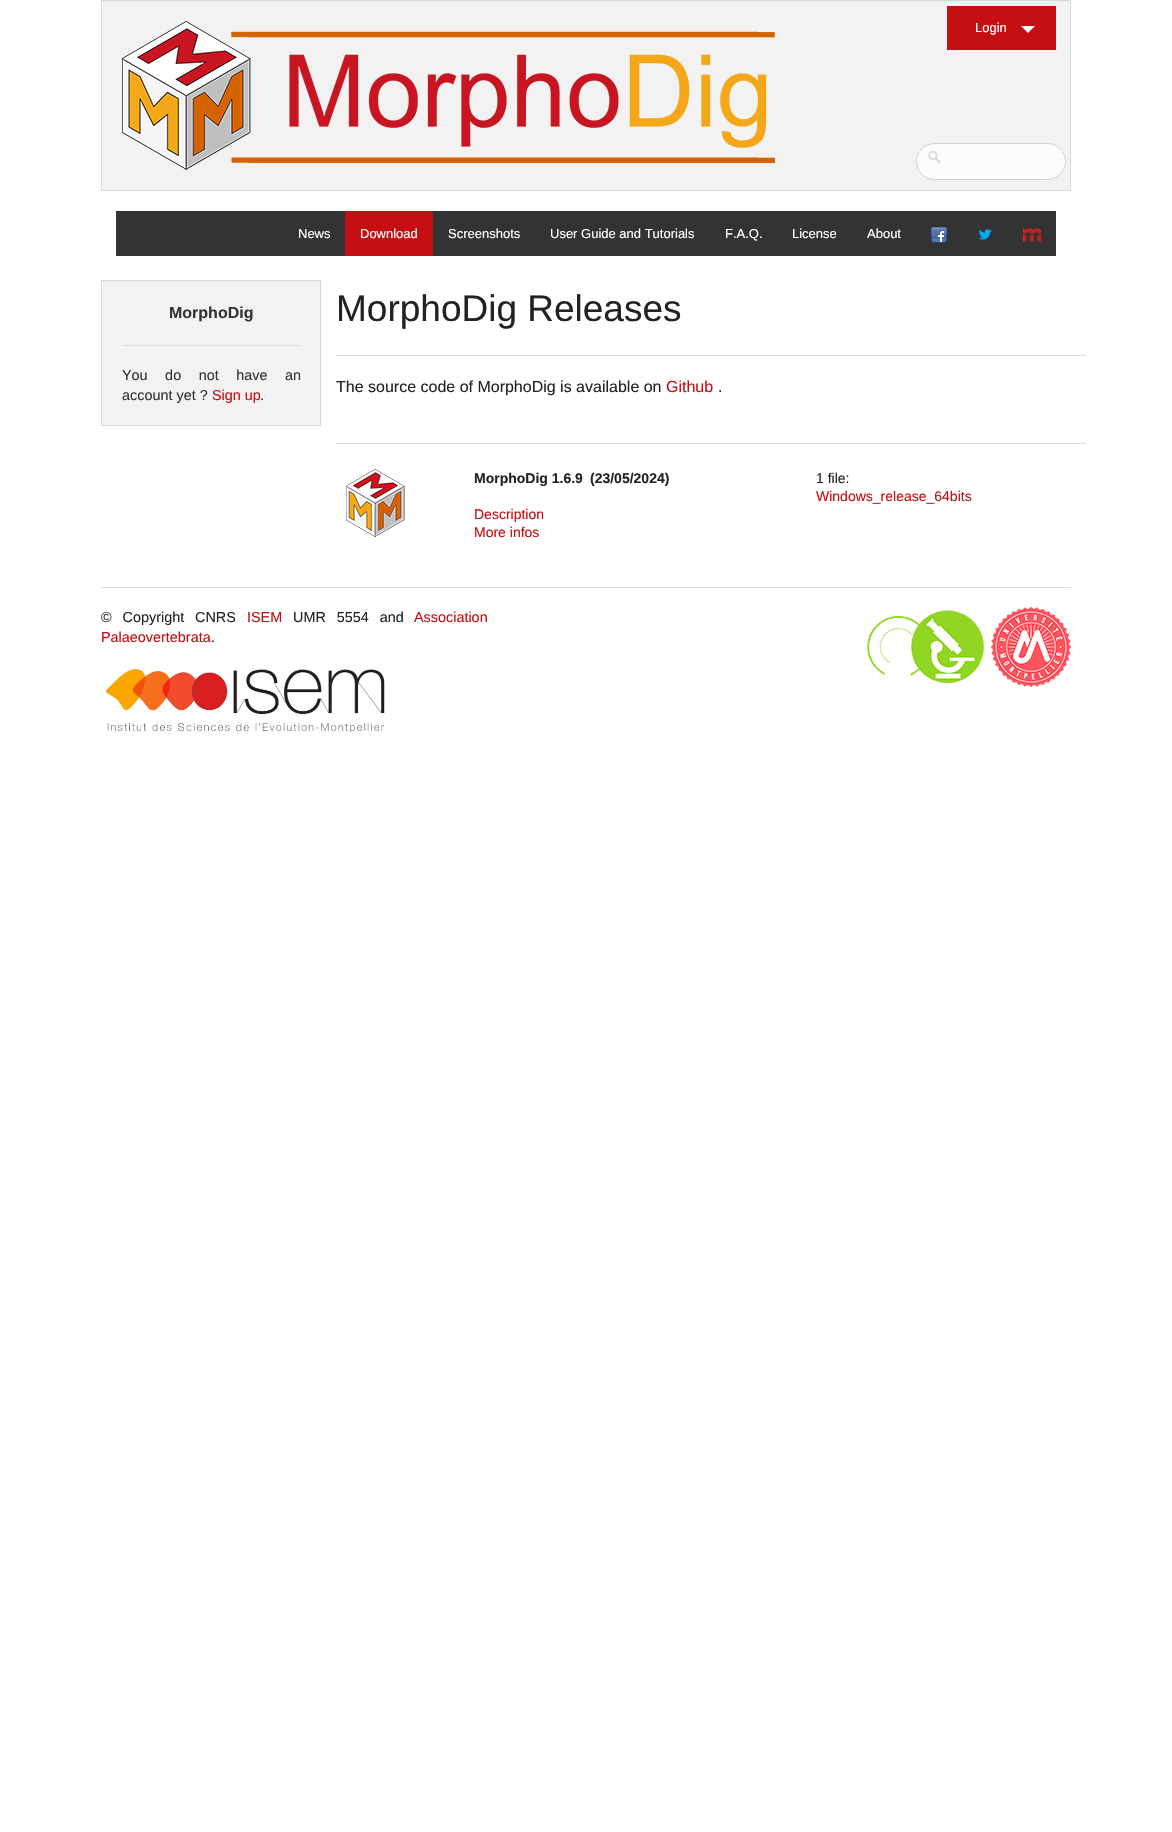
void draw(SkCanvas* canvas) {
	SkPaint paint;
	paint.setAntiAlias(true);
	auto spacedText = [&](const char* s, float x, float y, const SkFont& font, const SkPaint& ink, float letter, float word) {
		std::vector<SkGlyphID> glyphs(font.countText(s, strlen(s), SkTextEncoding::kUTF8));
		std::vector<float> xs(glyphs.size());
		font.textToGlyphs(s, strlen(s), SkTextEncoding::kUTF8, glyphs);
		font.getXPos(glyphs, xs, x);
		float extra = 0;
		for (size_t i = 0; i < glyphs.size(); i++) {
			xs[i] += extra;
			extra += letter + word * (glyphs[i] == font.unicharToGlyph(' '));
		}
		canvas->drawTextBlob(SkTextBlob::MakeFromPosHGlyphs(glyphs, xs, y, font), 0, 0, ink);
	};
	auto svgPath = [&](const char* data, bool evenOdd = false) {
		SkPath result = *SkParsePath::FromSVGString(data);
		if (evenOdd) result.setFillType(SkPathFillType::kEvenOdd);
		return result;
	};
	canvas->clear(0xffffffff);
	paint.setColor(0xfff2f2f2);
	canvas->drawRect(SkRect::MakeXYWH(101.5, 0.5, 969, 190), paint);
	paint.setStroke(true);
	paint.setStrokeWidth(1);
	paint.setColor(0xffd8d8d8);
	canvas->drawRect(SkRect::MakeXYWH(101.5, 0.5, 969, 190), paint);
	canvas->drawImageRect(SkImages::DeferredFromEncodedData(SkData::MakeFromFileName("img1.png")), SkRect::MakeXYWH(122, 21, 653, 149), SkSamplingOptions());
	paint.setStroke(false);
	paint.setColor(0xffc60f13);
	canvas->drawRect(SkRect::MakeXYWH(947, 6, 109, 44), paint);
	SkFont f1(fontMgr->matchFamilyStyle("Liberation Sans", SkFontStyle::Normal()), 13);
	f1.setSubpixel(true);
	paint.setColor(0xffffffff);
	canvas->drawString("Login", 975, 32, f1, paint);
	canvas->drawPath(svgPath("M1021 26H1035L1028 33Z"), paint);
	paint.setColor(0xfffcfcfc);
	canvas->drawRoundRect(SkRect::MakeXYWH(916, 143, 150, 37), 18.5, 18.5, paint);
	canvas->drawImageRect(SkImages::DeferredFromEncodedData(SkData::MakeFromFileName("img2.png")), SkRect::MakeXYWH(928, 151, 13, 13), SkSamplingOptions());
	paint.setStroke(true);
	paint.setColor(0xffd1d1d1);
	canvas->drawRoundRect(SkRect::MakeXYWH(916.5, 143.5, 149, 36), 18, 18, paint);
	paint.setStroke(false);
	paint.setColor(0xff333333);
	canvas->drawRect(SkRect::MakeXYWH(116, 211, 940, 45), paint);
	paint.setColor(0xffffffff);
	canvas->drawString("News", 298, 238, f1, paint);
	paint.setColor(0xffc60f13);
	canvas->drawRect(SkRect::MakeXYWH(345, 211, 88, 45), paint);
	paint.setColor(0xffffffff);
	canvas->drawString("Download", 360, 238, f1, paint);
	canvas->drawString("Screenshots", 448, 238, f1, paint);
	canvas->drawString("User Guide and Tutorials", 550, 238, f1, paint);
	canvas->drawString("F.A.Q.", 725, 238, f1, paint);
	canvas->drawString("License", 792, 238, f1, paint);
	canvas->drawString("About", 867, 238, f1, paint);
	canvas->drawImageRect(SkImages::DeferredFromEncodedData(SkData::MakeFromFileName("img3.png")), SkRect::MakeXYWH(931, 227, 16, 16), SkSamplingOptions());
	canvas->drawImageRect(SkImages::DeferredFromEncodedData(SkData::MakeFromFileName("img4.png")), SkRect::MakeXYWH(978, 229, 14, 11), SkSamplingOptions());
	canvas->drawImageRect(SkImages::DeferredFromEncodedData(SkData::MakeFromFileName("img5.png")), SkRect::MakeXYWH(1023, 228, 18, 14), SkSamplingOptions());
	paint.setColor(0xfff2f2f2);
	canvas->drawRect(SkRect::MakeXYWH(101.5, 280.5, 219, 145), paint);
	paint.setStroke(true);
	paint.setColor(0xffd8d8d8);
	canvas->drawRect(SkRect::MakeXYWH(101.5, 280.5, 219, 145), paint);
	SkFont f2(fontMgr->matchFamilyStyle("Liberation Sans", SkFontStyle::Bold()), 16);
	f2.setSubpixel(true);
	paint.setStroke(false);
	paint.setColor(0xff333333);
	canvas->drawString("MorphoDig", 169, 318, f2, paint);
	paint.setColor(0xffdddddd);
	canvas->drawRect(SkRect::MakeXYWH(122, 345, 178, 1), paint);
	SkFont f3(fontMgr->matchFamilyStyle("Liberation Sans", SkFontStyle::Normal()), 14.4);
	f3.setSubpixel(true);
	paint.setColor(0xff333333);
	spacedText("You do not have an", 122, 380, f3, paint, 0, 13.5);
	canvas->drawString("account yet ?", 122, 400, f3, paint);
	paint.setColor(0xffc60f13);
	canvas->drawString("Sign up", 212, 400, f3, paint);
	paint.setColor(0xff333333);
	canvas->drawString(".", 260, 400, f3, paint);
	SkFont f4(fontMgr->matchFamilyStyle("Liberation Sans", SkFontStyle::Normal()), 37);
	f4.setSubpixel(true);
	paint.setColor(0xff222222);
	canvas->drawString("MorphoDig Releases", 336, 321, f4, paint);
	paint.setColor(0xffdddddd);
	canvas->drawRect(SkRect::MakeXYWH(336, 355, 750, 1), paint);
	SkFont f5(fontMgr->matchFamilyStyle("Liberation Sans", SkFontStyle::Normal()), 16);
	f5.setSubpixel(true);
	paint.setColor(0xff222222);
	canvas->drawString("The source code of MorphoDig is available on", 336, 392, f5, paint);
	paint.setColor(0xffc60f13);
	canvas->drawString("Github", 666, 392, f5, paint);
	paint.setColor(0xff222222);
	canvas->drawString(".", 718, 392, f5, paint);
	paint.setColor(0xffdddddd);
	canvas->drawRect(SkRect::MakeXYWH(336, 443, 750, 1), paint);
	canvas->drawImageRect(SkImages::DeferredFromEncodedData(SkData::MakeFromFileName("img6.png")), SkRect::MakeXYWH(346, 469, 59, 68), SkSamplingOptions());
	SkFont f6(fontMgr->matchFamilyStyle("Liberation Sans", SkFontStyle::Bold()), 14);
	f6.setSubpixel(true);
	paint.setColor(0xff222222);
	canvas->drawString("MorphoDig 1.6.9", 474, 483, f6, paint);
	canvas->drawString("(23/05/2024)", 590, 483, f6, paint);
	SkFont f7(fontMgr->matchFamilyStyle("Liberation Sans", SkFontStyle::Normal()), 14);
	f7.setSubpixel(true);
	paint.setColor(0xffc60f13);
	canvas->drawString("Description", 474, 519, f7, paint);
	canvas->drawString("More infos", 474, 537, f7, paint);
	paint.setColor(0xff222222);
	canvas->drawString("1 file:", 816, 483, f7, paint);
	paint.setColor(0xffc60f13);
	canvas->drawString("Windows_release_64bits", 816, 501, f7, paint);
	paint.setColor(0xffdddddd);
	canvas->drawRect(SkRect::MakeXYWH(101, 587, 970, 1), paint);
	paint.setColor(0xff222222);
	spacedText("© Copyright", 101, 622, f3, paint, 0, 7);
	canvas->drawString("CNRS", 195, 622, f3, paint);
	paint.setColor(0xffc60f13);
	canvas->drawString("ISEM", 247, 622, f3, paint);
	paint.setColor(0xff222222);
	spacedText("UMR 5554 and", 293, 622, f3, paint, 0, 7);
	paint.setColor(0xffc60f13);
	canvas->drawString("Association", 414, 622, f3, paint);
	canvas->drawString("Palaeovertebrata", 101, 642, f3, paint);
	paint.setColor(0xff222222);
	canvas->drawString(".", 211, 642, f3, paint);
	canvas->drawImageRect(SkImages::DeferredFromEncodedData(SkData::MakeFromFileName("img7.png")), SkRect::MakeXYWH(103, 666, 282, 67), SkSamplingOptions());
	canvas->drawImageRect(SkImages::DeferredFromEncodedData(SkData::MakeFromFileName("img8.png")), SkRect::MakeXYWH(867, 609, 117, 75), SkSamplingOptions());
	canvas->drawImageRect(SkImages::DeferredFromEncodedData(SkData::MakeFromFileName("img9.png")), SkRect::MakeXYWH(991, 607, 80, 80), SkSamplingOptions());
}
